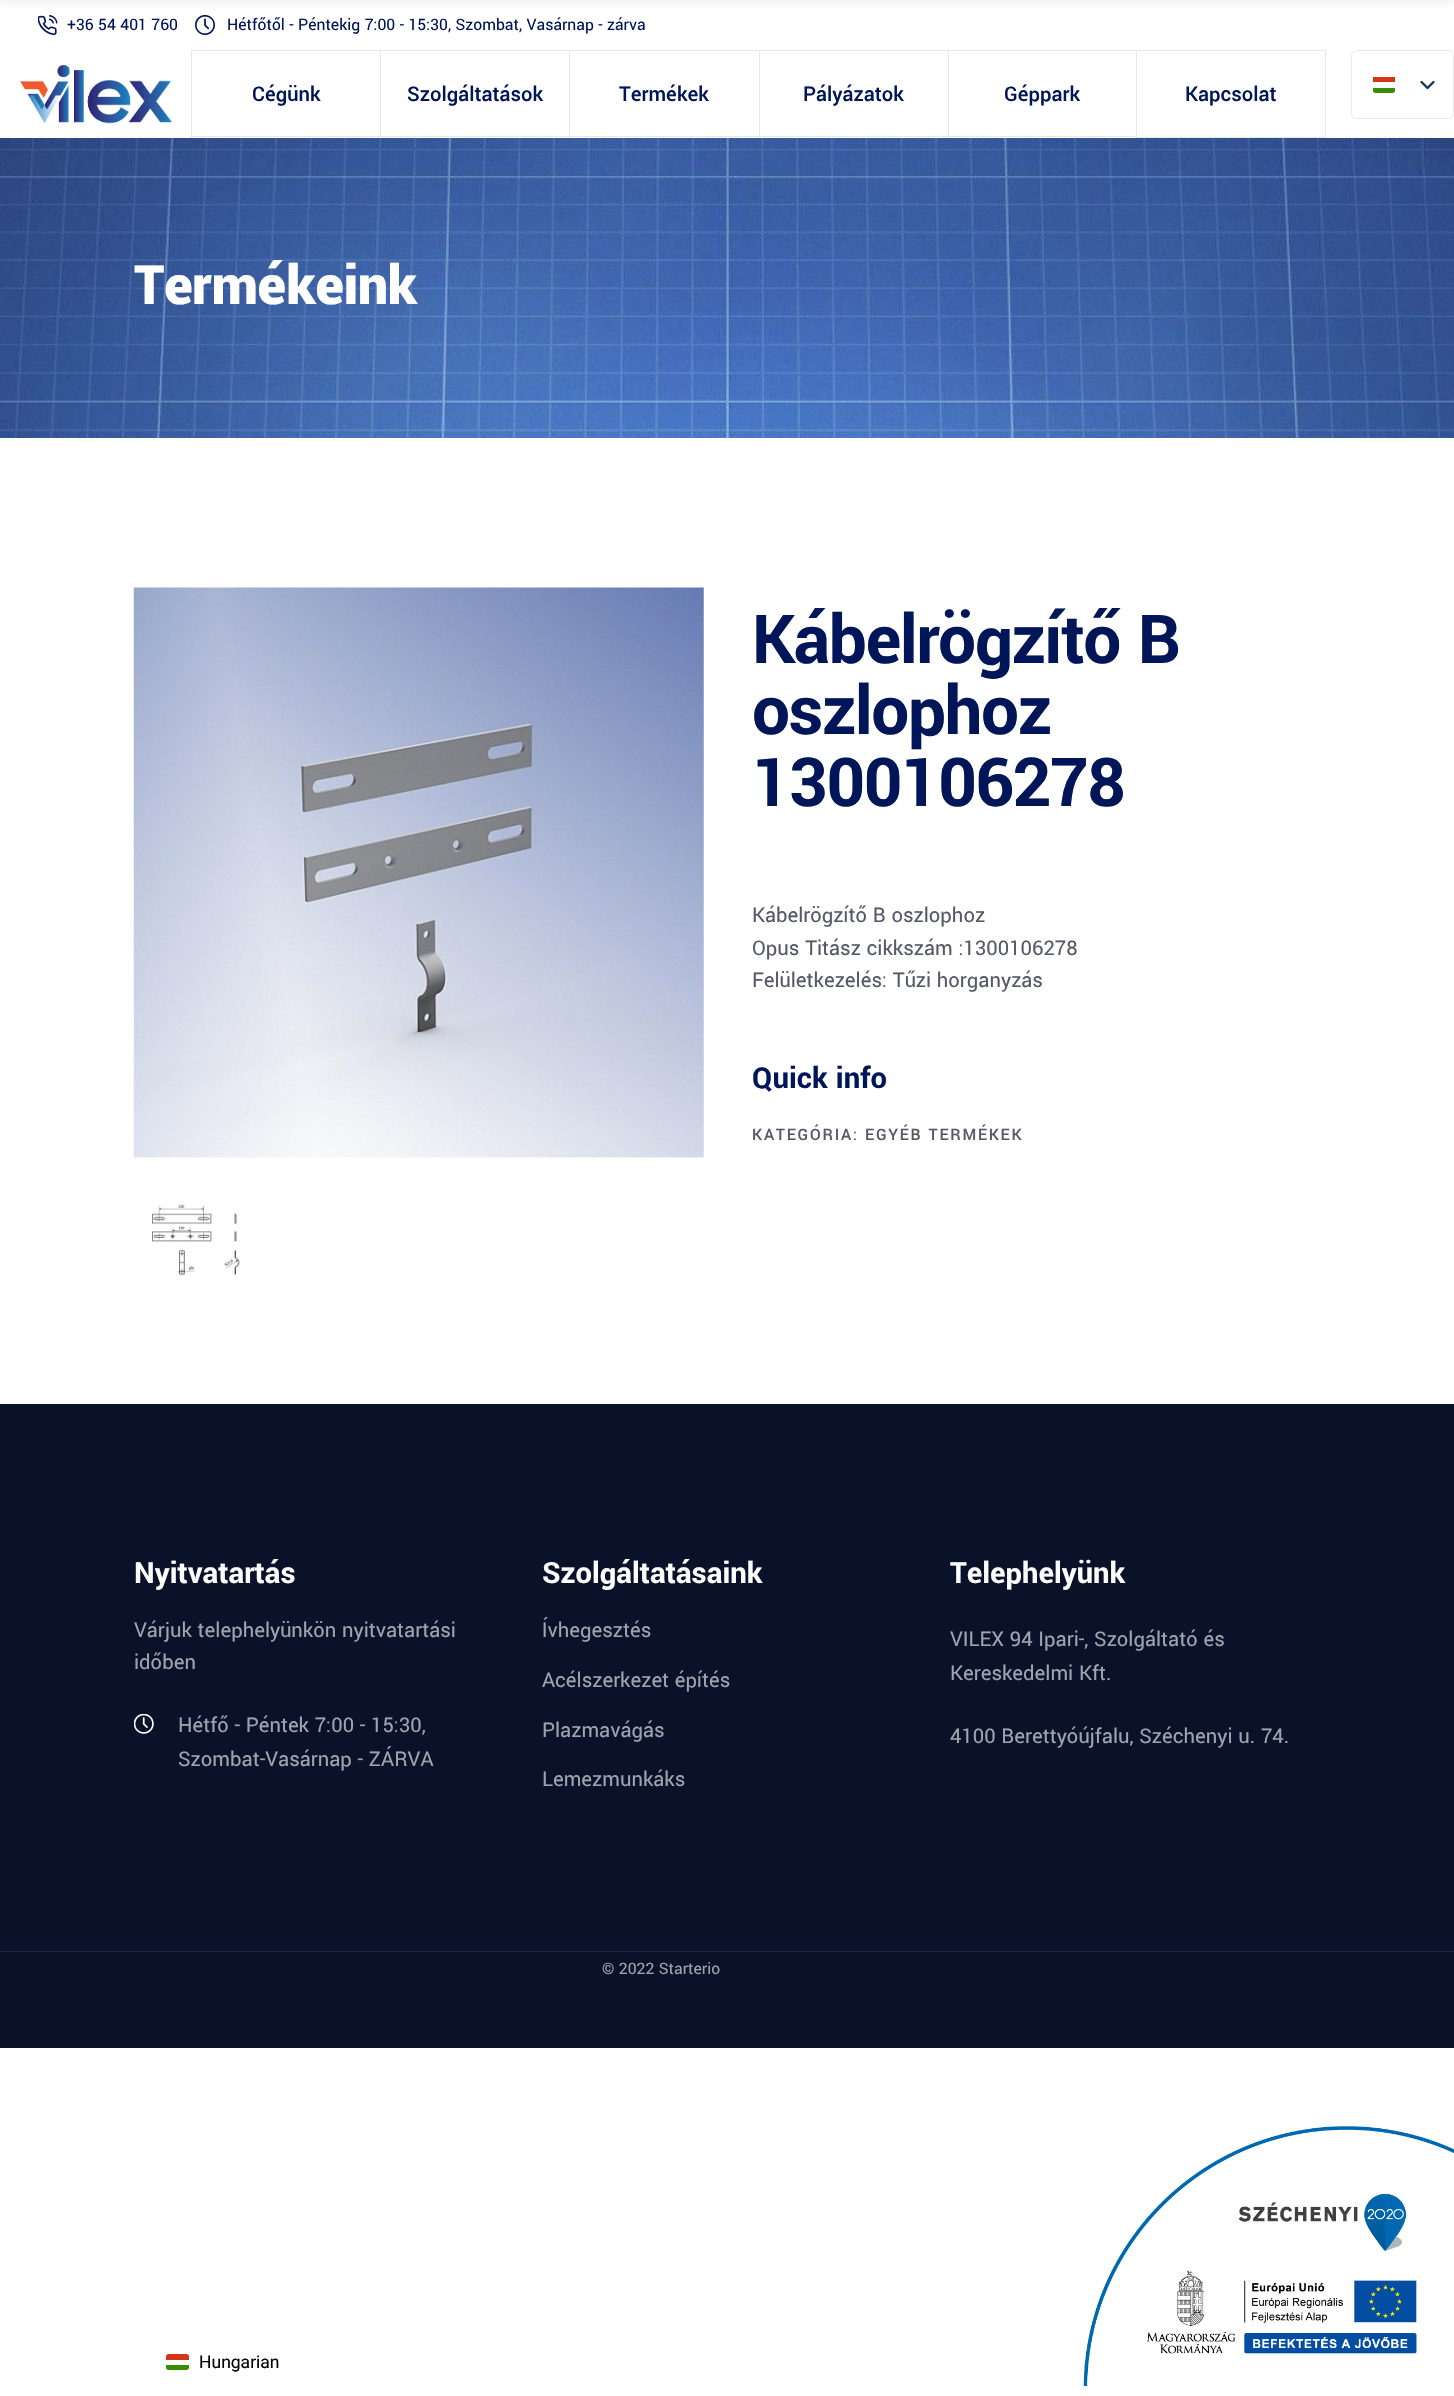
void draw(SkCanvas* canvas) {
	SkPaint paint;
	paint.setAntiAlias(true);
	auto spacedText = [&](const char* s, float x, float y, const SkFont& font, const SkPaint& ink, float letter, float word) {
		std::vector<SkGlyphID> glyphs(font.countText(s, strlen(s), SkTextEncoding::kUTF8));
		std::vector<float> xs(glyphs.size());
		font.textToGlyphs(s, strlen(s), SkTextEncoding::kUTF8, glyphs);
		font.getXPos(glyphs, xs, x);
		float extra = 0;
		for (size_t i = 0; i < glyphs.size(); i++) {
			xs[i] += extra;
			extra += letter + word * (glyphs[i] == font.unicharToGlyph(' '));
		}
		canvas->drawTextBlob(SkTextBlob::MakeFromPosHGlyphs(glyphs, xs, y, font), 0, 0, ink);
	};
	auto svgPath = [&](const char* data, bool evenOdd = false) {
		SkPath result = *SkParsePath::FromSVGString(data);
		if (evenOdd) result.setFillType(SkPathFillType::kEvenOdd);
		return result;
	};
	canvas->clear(0xffffffff);
	canvas->drawImageRect(SkImages::DeferredFromEncodedData(SkData::MakeFromFileName("img1.png")), SkRect::MakeXYWH(38, 15, 20, 20), SkSamplingOptions());
	SkFont f1(fontMgr->matchFamilyStyle("Yantramanav", SkFontStyle::Normal()), 17.5);
	f1.setSubpixel(true);
	paint.setColor(0xff001659);
	canvas->drawString("+36 54 401 760", 67, 30, f1, paint);
	canvas->drawImageRect(SkImages::DeferredFromEncodedData(SkData::MakeFromFileName("img2.png")), SkRect::MakeXYWH(195, 15, 20, 20), SkSamplingOptions());
	canvas->drawString("Hétfőtől - Péntekig 7:00 - 15:30, Szombat, Vasárnap - zárva", 227, 30, f1, paint);
	paint.setColor(0x1a263b62);
	paint.setMaskFilter(SkMaskFilter::MakeBlur(kNormal_SkBlurStyle, 6));
	canvas->drawRect(SkRect::MakeXYWH(-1, -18, 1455, 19), paint);
	paint.setMaskFilter(nullptr);
	canvas->drawImageRect(SkImages::DeferredFromEncodedData(SkData::MakeFromFileName("img3.png")), SkRect::MakeXYWH(20, 65, 152, 59), SkSamplingOptions());
	paint.setColor(0xffe8e8e9);
	canvas->drawRect(SkRect::MakeXYWH(191, 50, 945, 1), paint);
	canvas->drawRect(SkRect::MakeXYWH(191, 136, 945, 1), paint);
	canvas->drawRect(SkRect::MakeXYWH(191, 50, 1, 88), paint);
	SkFont f2(fontMgr->matchFamilyStyle("Yantramanav", SkFontStyle(500, SkFontStyle::kNormal_Width, SkFontStyle::kUpright_Slant)), 22.5);
	f2.setSubpixel(true);
	paint.setColor(0xff001659);
	canvas->drawString("Cégünk", 252, 101, f2, paint);
	paint.setColor(0xffe8e8e9);
	canvas->drawRect(SkRect::MakeXYWH(380, 50, 1, 88), paint);
	paint.setColor(0xff001659);
	canvas->drawString("Szolgáltatások", 407, 101, f2, paint);
	paint.setColor(0xffe8e8e9);
	canvas->drawRect(SkRect::MakeXYWH(569, 50, 1, 88), paint);
	paint.setColor(0xff001659);
	canvas->drawString("Termékek", 619, 101, f2, paint);
	paint.setColor(0xffe8e8e9);
	canvas->drawRect(SkRect::MakeXYWH(759, 50, 1, 88), paint);
	paint.setColor(0xff001659);
	canvas->drawString("Pályázatok", 803, 101, f2, paint);
	paint.setColor(0xffe8e8e9);
	canvas->drawRect(SkRect::MakeXYWH(948, 50, 1, 88), paint);
	paint.setColor(0xff001659);
	canvas->drawString("Géppark", 1004, 101, f2, paint);
	paint.setStroke(true);
	paint.setStrokeWidth(1);
	paint.setColor(0xffe8e8e9);
	canvas->drawRect(SkRect::MakeXYWH(1136.5, 50.5, 189, 87), paint);
	paint.setStroke(false);
	paint.setColor(0xff001659);
	canvas->drawString("Kapcsolat", 1185, 101, f2, paint);
	paint.setStroke(true);
	paint.setColor(0xffe8ebee);
	canvas->drawRoundRect(SkRect::MakeXYWH(1351.5, 50.5, 102, 68), 5.5, 5.5, paint);
	paint.setStroke(false);
	paint.setColor(0xff388d00);
	canvas->drawPath(svgPath("M1373 88H1395V90.5C1395 92 1394 93 1392.5 93H1375.5C1374 93 1373 92 1373 90.5Z"), paint);
	paint.setColor(0xffd43516);
	canvas->drawRect(SkRect::MakeXYWH(1373, 77, 22, 5), paint);
	paint.setStroke(true);
	paint.setStrokeWidth(2.4);
	paint.setStrokeCap(SkPaint::kRound_Cap);
	paint.setStrokeJoin(SkPaint::kRound_Join);
	paint.setColor(0xff143852);
	canvas->drawPath(svgPath("M1421.5 82L1427.5 88L1433.5 82"), paint);
	canvas->drawImageRect(SkImages::DeferredFromEncodedData(SkData::MakeFromFileName("img4.png")), SkRect::MakeXYWH(0, 138, 1454, 300), SkSamplingOptions());
	SkFont f3(fontMgr->matchFamilyStyle("Yantramanav", SkFontStyle(900, SkFontStyle::kNormal_Width, SkFontStyle::kUpright_Slant)), 60);
	f3.setSubpixel(true);
	paint.setStroke(false);
	paint.setColor(0xffffffff);
	spacedText("Termékeink", 134, 304, f3, paint, -0.5, 0);
	canvas->drawImageRect(SkImages::DeferredFromEncodedData(SkData::MakeFromFileName("img5.png")), SkRect::MakeXYWH(133, 587, 571, 571), SkSamplingOptions());
	canvas->drawImageRect(SkImages::DeferredFromEncodedData(SkData::MakeFromFileName("img6.png")), SkRect::MakeXYWH(151, 1203, 89, 73), SkSamplingOptions());
	SkFont f4(fontMgr->matchFamilyStyle("Yantramanav", SkFontStyle::Bold()), 75);
	f4.setSubpixel(true);
	paint.setColor(0xff001659);
	spacedText("Kábelrögzítő B", 752, 663, f4, paint, -1.5, 0);
	spacedText("oszlophoz", 752, 734, f4, paint, -1.5, 0);
	spacedText("1300106278", 752, 806, f4, paint, -1.5, 0);
	SkFont f5(fontMgr->matchFamilyStyle("Yantramanav", SkFontStyle::Normal()), 22.5);
	f5.setSubpixel(true);
	paint.setColor(0xff565969);
	canvas->drawString("Kábelrögzítő B oszlophoz", 752, 922, f5, paint);
	canvas->drawString("Opus Titász cikkszám :1300106278", 752, 955, f5, paint);
	canvas->drawString("Felületkezelés: Tűzi horganyzás", 752, 987, f5, paint);
	SkFont f6(fontMgr->matchFamilyStyle("Yantramanav", SkFontStyle::Bold()), 32.5);
	f6.setSubpixel(true);
	paint.setColor(0xff001659);
	canvas->drawString("Quick info", 752, 1088, f6, paint);
	SkFont f7(fontMgr->matchFamilyStyle("Yantramanav", SkFontStyle(500, SkFontStyle::kNormal_Width, SkFontStyle::kUpright_Slant)), 17.5);
	f7.setSubpixel(true);
	paint.setColor(0xff565969);
	spacedText("KATEGÓRIA: EGYÉB TERMÉKEK", 752, 1140, f7, paint, 1.75, 0);
	paint.setColor(0xff0a1229);
	canvas->drawRect(SkRect::MakeXYWH(0, 1404, 1454, 547), paint);
	paint.setColor(0xffffffff);
	canvas->drawString("Nyitvatartás", 134, 1583, f6, paint);
	paint.setColor(0xff9ca5af);
	canvas->drawString("Várjuk telephelyünkön nyitvatartási", 134, 1637, f5, paint);
	canvas->drawString("időben", 134, 1669, f5, paint);
	canvas->drawImageRect(SkImages::DeferredFromEncodedData(SkData::MakeFromFileName("img7.png")), SkRect::MakeXYWH(134, 1714, 20, 20), SkSamplingOptions());
	canvas->drawString("Hétfő - Péntek 7:00 - 15:30,", 178, 1732, f5, paint);
	canvas->drawString("Szombat-Vasárnap - ZÁRVA", 178, 1766, f5, paint);
	paint.setColor(0xffffffff);
	canvas->drawString("Szolgáltatásaink", 542, 1583, f6, paint);
	paint.setColor(0xff9ca5af);
	canvas->drawString("Ívhegesztés", 542, 1637, f5, paint);
	canvas->drawString("Acélszerkezet építés", 542, 1687, f5, paint);
	canvas->drawString("Plazmavágás", 542, 1737, f5, paint);
	canvas->drawString("Lemezmunkáks", 542, 1786, f5, paint);
	paint.setColor(0xffffffff);
	canvas->drawString("Telephelyünk", 950, 1583, f6, paint);
	paint.setColor(0xff9ca5af);
	canvas->drawString("VILEX 94 Ipari-, Szolgáltató és", 950, 1646, f5, paint);
	canvas->drawString("Kereskedelmi Kft.", 950, 1680, f5, paint);
	canvas->drawString("4100 Berettyóújfalu, Széchenyi u. 74.", 950, 1743, f5, paint);
	paint.setColor(0xff0a1229);
	canvas->drawRect(SkRect::MakeXYWH(0, 1952, 1454, 96), paint);
	paint.setColor(0xff1d263f);
	canvas->drawRect(SkRect::MakeXYWH(0, 1951, 1454, 1), paint);
	paint.setColor(0xff9ca5af);
	canvas->drawString("© 2022 Starterio", 602, 1974, f1, paint);
	paint.setColor(0xff388d00);
	canvas->drawPath(svgPath("M166 2365H189V2367.5C189 2369 188 2370 186.5 2370H168.5C167 2370 166 2369 166 2367.5Z"), paint);
	paint.setColor(0xffd43516);
	canvas->drawPath(svgPath("M168.5 2354H186.5C188 2354 189 2355 189 2356.5V2360H166V2356.5C166 2355 167 2354 168.5 2354Z"), paint);
	SkFont f8(fontMgr->matchFamilyStyle("Roboto", SkFontStyle::Normal()), 17.5);
	f8.setSubpixel(true);
	paint.setColor(0xff000000);
	canvas->drawString("Hungarian", 199, 2368, f8, paint);
	canvas->drawImageRect(SkImages::DeferredFromEncodedData(SkData::MakeFromFileName("img8.png")), SkRect::MakeXYWH(1083, 2126, 371, 260), SkSamplingOptions());
}
